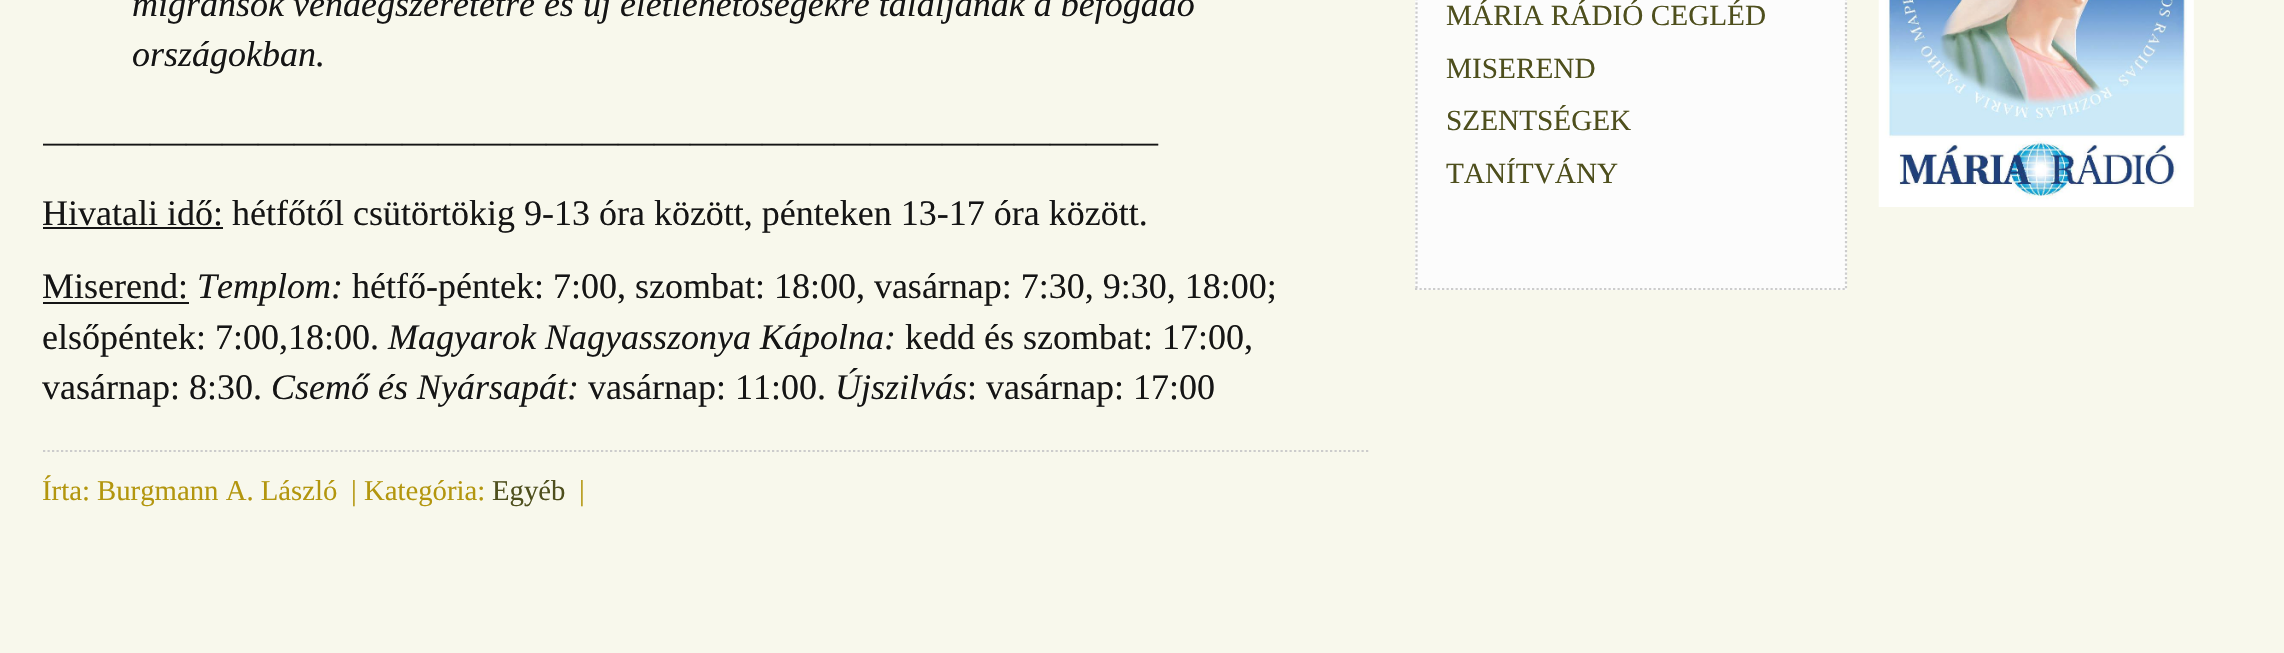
void draw(SkCanvas* canvas) {
	SkPaint paint;
	paint.setAntiAlias(true);
	auto svgPath = [&](const char* data, bool evenOdd = false) {
		SkPath result = *SkParsePath::FromSVGString(data);
		if (evenOdd) result.setFillType(SkPathFillType::kEvenOdd);
		return result;
	};
	canvas->clear(0xfff8f8ec);
	SkFont f1(fontMgr->matchFamilyStyle("Liberation Serif", SkFontStyle::Italic()), 36);
	f1.setSubpixel(true);
	paint.setColor(0xff151515);
	canvas->drawString("migránsok vendégszeretetre és új életlehetőségekre találjanak a befogadó", 132, 16, f1, paint);
	canvas->drawString("országokban.", 132, 66, f1, paint);
	canvas->save();
	canvas->clipRect(SkRect::MakeXYWH(43, 0, 1327, 450));
	SkFont f2(fontMgr->matchFamilyStyle("Liberation Serif", SkFontStyle::Normal()), 36);
	f2.setSubpixel(true);
	canvas->drawString("———————————————————————————————", 42, 153, f2, paint);
	canvas->restore();
	canvas->drawRect(SkRect::MakeXYWH(43, 227, 180, 2), paint);
	canvas->drawString("Hivatali idő: hétfőtől csütörtökig 9-13 óra között, pénteken 13-17 óra között.", 42, 225, f2, paint);
	canvas->drawString("Miserend:", 42, 298, f2, paint);
	canvas->drawRect(SkRect::MakeXYWH(43, 302, 146, 2), paint);
	canvas->drawString("Templom:", 197, 298, f1, paint);
	canvas->drawString("hétfő-péntek: 7:00, szombat: 18:00, vasárnap: 7:30, 9:30, 18:00;", 352, 298, f2, paint);
	canvas->drawString("elsőpéntek: 7:00,18:00.", 42, 349, f2, paint);
	canvas->drawString("Magyarok Nagyasszonya Kápolna:", 388, 349, f1, paint);
	canvas->drawString("kedd és szombat: 17:00,", 905, 349, f2, paint);
	canvas->drawString("vasárnap: 8:30.", 42, 399, f2, paint);
	canvas->drawString("Csemő és Nyársapát:", 271, 399, f1, paint);
	canvas->drawString("vasárnap: 11:00.", 588, 399, f2, paint);
	canvas->drawString("Újszilvás", 835, 399, f1, paint);
	canvas->drawString(": vasárnap: 17:00", 967, 399, f2, paint);
	paint.setStroke(true);
	paint.setStrokeWidth(2.2);
	paint.setColor(0xffcccccc);
	paint.setPathEffect(SkDashPathEffect::Make({{2.25f, 2.25f}}, 0));
	canvas->drawPath(svgPath("M43 451H1370"), paint);
	paint.setPathEffect(nullptr);
	SkFont f3(fontMgr->matchFamilyStyle("Liberation Serif", SkFontStyle::Normal()), 28.75);
	f3.setSubpixel(true);
	paint.setStroke(false);
	paint.setColor(0xffb3960e);
	canvas->drawString("Írta: Burgmann A. László", 42, 500, f3, paint);
	canvas->drawString("| Kategória:", 351, 500, f3, paint);
	paint.setColor(0xff4e4f1d);
	canvas->drawString("Egyéb", 492, 500, f3, paint);
	paint.setColor(0xffb3960e);
	canvas->drawString("|", 579, 500, f3, paint);
	paint.setColor(0xfffcfcfc);
	canvas->drawRect(SkRect::MakeXYWH(1415, 0, 432, 290), paint);
	paint.setStroke(true);
	paint.setColor(0xffcccccc);
	paint.setPathEffect(SkDashPathEffect::Make({{2.25f, 2.25f}}, 0));
	canvas->drawPath(svgPath("M1846-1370V290"), paint);
	paint.setPathEffect(nullptr);
	paint.setPathEffect(SkDashPathEffect::Make({{2.25f, 2.25f}}, 0));
	canvas->drawPath(svgPath("M1415 289H1847"), paint);
	paint.setPathEffect(nullptr);
	paint.setPathEffect(SkDashPathEffect::Make({{2.25f, 2.25f}}, 0));
	canvas->drawPath(svgPath("M1416.5-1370V290"), paint);
	paint.setPathEffect(nullptr);
	SkFont f4(fontMgr->matchFamilyStyle("Liberation Serif", SkFontStyle::Normal()), 29.25);
	f4.setSubpixel(true);
	paint.setStroke(false);
	paint.setColor(0xff4e4f1d);
	canvas->drawString("MÁRIA RÁDIÓ CEGLÉD", 1446, 25, f4, paint);
	canvas->drawString("MISEREND", 1446, 78, f4, paint);
	canvas->drawString("SZENTSÉGEK", 1446, 130, f4, paint);
	canvas->drawString("TANÍTVÁNY", 1446, 183, f4, paint);
	canvas->drawImageRect(SkImages::DeferredFromEncodedData(SkData::MakeFromFileName("img1.png")), SkRect::MakeXYWH(1878, 0, 316, 207), SkSamplingOptions());
}
